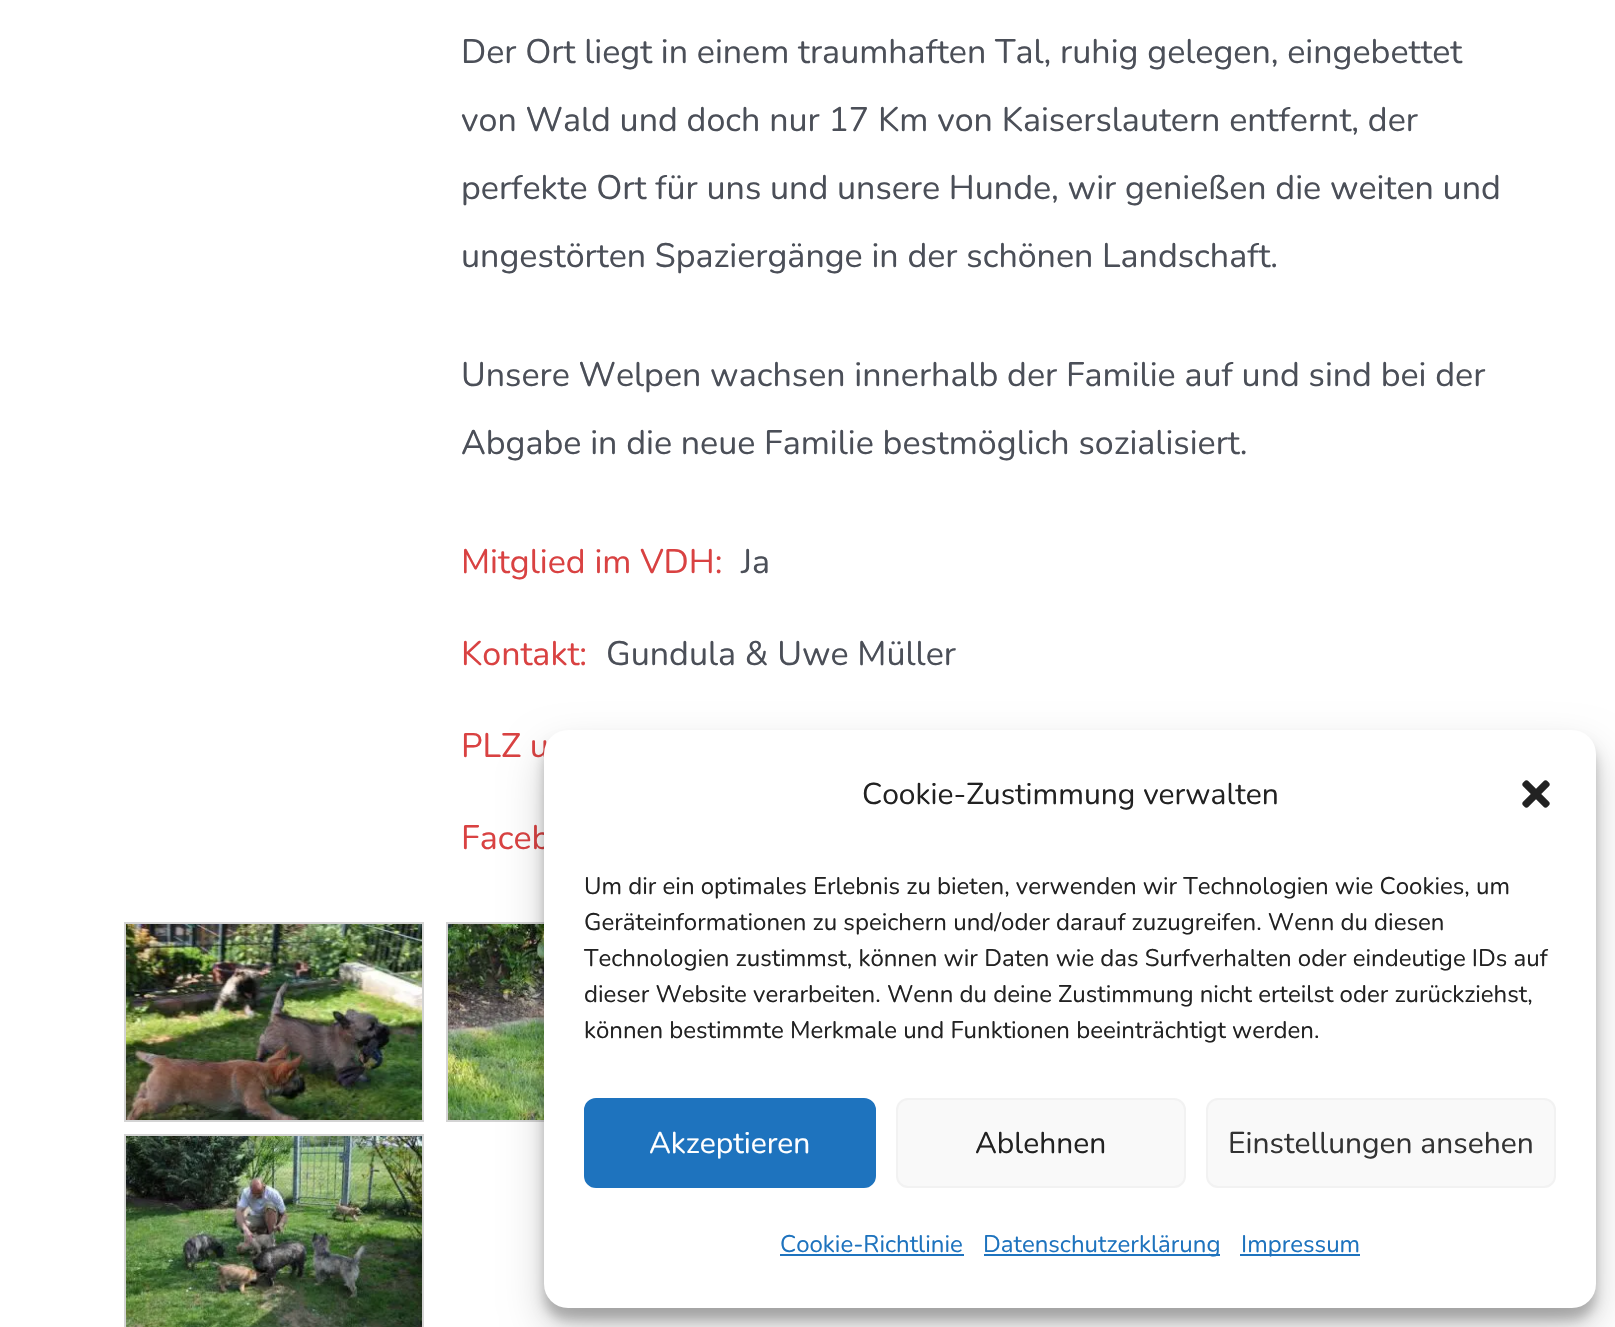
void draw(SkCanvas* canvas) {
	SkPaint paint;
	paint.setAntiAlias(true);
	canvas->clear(0xffffffff);
	SkFont f1(fontMgr->matchFamilyStyle("Nunito", SkFontStyle::Normal()), 34);
	f1.setSubpixel(true);
	paint.setColor(0xff4b4f58);
	canvas->drawString("Der Ort liegt in einem traumhaften Tal, ruhig gelegen, eingebettet", 461, 63, f1, paint);
	canvas->drawString("von Wald und doch nur 17 Km von Kaiserslautern entfernt, der", 461, 131, f1, paint);
	canvas->drawString("perfekte Ort für uns und unsere Hunde, wir genießen die weiten und", 461, 199, f1, paint);
	canvas->drawString("ungestörten Spaziergänge in der schönen Landschaft.", 461, 267, f1, paint);
	canvas->drawString("Unsere Welpen wachsen innerhalb der Familie auf und sind bei der", 461, 386, f1, paint);
	canvas->drawString("Abgabe in die neue Familie bestmöglich sozialisiert.", 461, 454, f1, paint);
	paint.setColor(0xffd94242);
	canvas->drawString("Mitglied im VDH:", 461, 573, f1, paint);
	paint.setColor(0xff4b4f58);
	canvas->drawString("Ja", 741, 573, f1, paint);
	paint.setColor(0xffd94242);
	canvas->drawString("Kontakt:", 461, 665, f1, paint);
	paint.setColor(0xff4b4f58);
	canvas->drawString("Gundula & Uwe Müller", 606, 665, f1, paint);
	paint.setColor(0xffd94242);
	canvas->drawString("PLZ u", 461, 757, f1, paint);
	canvas->drawString("Faceb", 461, 849, f1, paint);
	paint.setStroke(true);
	paint.setStrokeWidth(2);
	paint.setColor(0xffd4d4d4);
	canvas->drawRect(SkRect::MakeXYWH(125, 923, 298, 198), paint);
	canvas->drawImageRect(SkImages::DeferredFromEncodedData(SkData::MakeFromFileName("img1.png")), SkRect::MakeXYWH(126, 924, 296, 196), SkSamplingOptions());
	canvas->drawRect(SkRect::MakeXYWH(447, 923, 298, 198), paint);
	canvas->drawImageRect(SkImages::DeferredFromEncodedData(SkData::MakeFromFileName("img2.png")), SkRect::MakeXYWH(448, 924, 96, 196), SkSamplingOptions());
	canvas->drawRect(SkRect::MakeXYWH(125, 1135, 298, 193), paint);
	canvas->drawImageRect(SkImages::DeferredFromEncodedData(SkData::MakeFromFileName("img3.png")), SkRect::MakeXYWH(126, 1136, 296, 191), SkSamplingOptions());
	paint.setStroke(false);
	paint.setColor(0x3b000000);
	paint.setMaskFilter(SkMaskFilter::MakeBlur(kNormal_SkBlurStyle, 6));
	canvas->drawRoundRect(SkRect::MakeXYWH(544, 742, 1052, 578), 24, 24, paint);
	paint.setMaskFilter(nullptr);
	paint.setColor(0x30000000);
	paint.setMaskFilter(SkMaskFilter::MakeBlur(kNormal_SkBlurStyle, 20));
	canvas->drawRoundRect(SkRect::MakeXYWH(544, 750, 1052, 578), 24, 24, paint);
	paint.setMaskFilter(nullptr);
	paint.setColor(0xffffffff);
	canvas->drawRoundRect(SkRect::MakeXYWH(544, 730, 1052, 578), 24, 24, paint);
	SkFont f2(fontMgr->matchFamilyStyle("Nunito", SkFontStyle::Normal()), 30);
	f2.setSubpixel(true);
	paint.setColor(0xff222222);
	canvas->drawString("Cookie-Zustimmung verwalten", 862, 804, f2, paint);
	canvas->drawImageRect(SkImages::DeferredFromEncodedData(SkData::MakeFromFileName("img4.png")), SkRect::MakeXYWH(1522, 780, 28, 28), SkSamplingOptions());
	SkFont f3(fontMgr->matchFamilyStyle("Nunito", SkFontStyle::Normal()), 24);
	f3.setSubpixel(true);
	canvas->drawString("Um dir ein optimales Erlebnis zu bieten, verwenden wir Technologien wie Cookies, um", 584, 894, f3, paint);
	canvas->drawString("Geräteinformationen zu speichern und/oder darauf zuzugreifen. Wenn du diesen", 584, 930, f3, paint);
	canvas->drawString("Technologien zustimmst, können wir Daten wie das Surfverhalten oder eindeutige IDs auf", 584, 966, f3, paint);
	canvas->drawString("dieser Website verarbeiten. Wenn du deine Zustimmung nicht erteilst oder zurückziehst,", 584, 1002, f3, paint);
	canvas->drawString("können bestimmte Merkmale und Funktionen beeinträchtigt werden.", 584, 1038, f3, paint);
	paint.setColor(0xff1e73be);
	canvas->drawRoundRect(SkRect::MakeXYWH(585, 1099, 290, 88), 11, 11, paint);
	paint.setStroke(true);
	canvas->drawRoundRect(SkRect::MakeXYWH(585, 1099, 290, 88), 11, 11, paint);
	paint.setStroke(false);
	paint.setColor(0xffffffff);
	canvas->drawString("Akzeptieren", 649, 1153, f2, paint);
	paint.setColor(0xfff9f9f9);
	canvas->drawRoundRect(SkRect::MakeXYWH(897, 1099, 288, 88), 11, 11, paint);
	paint.setStroke(true);
	paint.setColor(0xfff2f2f2);
	canvas->drawRoundRect(SkRect::MakeXYWH(897, 1099, 288, 88), 11, 11, paint);
	paint.setStroke(false);
	paint.setColor(0xff222222);
	canvas->drawString("Ablehnen", 975, 1153, f2, paint);
	paint.setColor(0xfff9f9f9);
	canvas->drawRoundRect(SkRect::MakeXYWH(1207, 1099, 348, 88), 11, 11, paint);
	paint.setStroke(true);
	paint.setColor(0xfff2f2f2);
	canvas->drawRoundRect(SkRect::MakeXYWH(1207, 1099, 348, 88), 11, 11, paint);
	paint.setStroke(false);
	paint.setColor(0xff333333);
	canvas->drawString("Einstellungen ansehen", 1228, 1153, f2, paint);
	paint.setColor(0xff1e73be);
	canvas->drawString("Cookie-Richtlinie", 780, 1252, f3, paint);
	canvas->drawRect(SkRect::MakeXYWH(780, 1254, 184, 2), paint);
	canvas->drawRect(SkRect::MakeXYWH(984, 1254, 236, 2), paint);
	canvas->drawString("Datenschutzerklärung", 983, 1252, f3, paint);
	canvas->drawRect(SkRect::MakeXYWH(1240, 1254, 120, 2), paint);
	canvas->drawString("Impressum", 1241, 1252, f3, paint);
}
